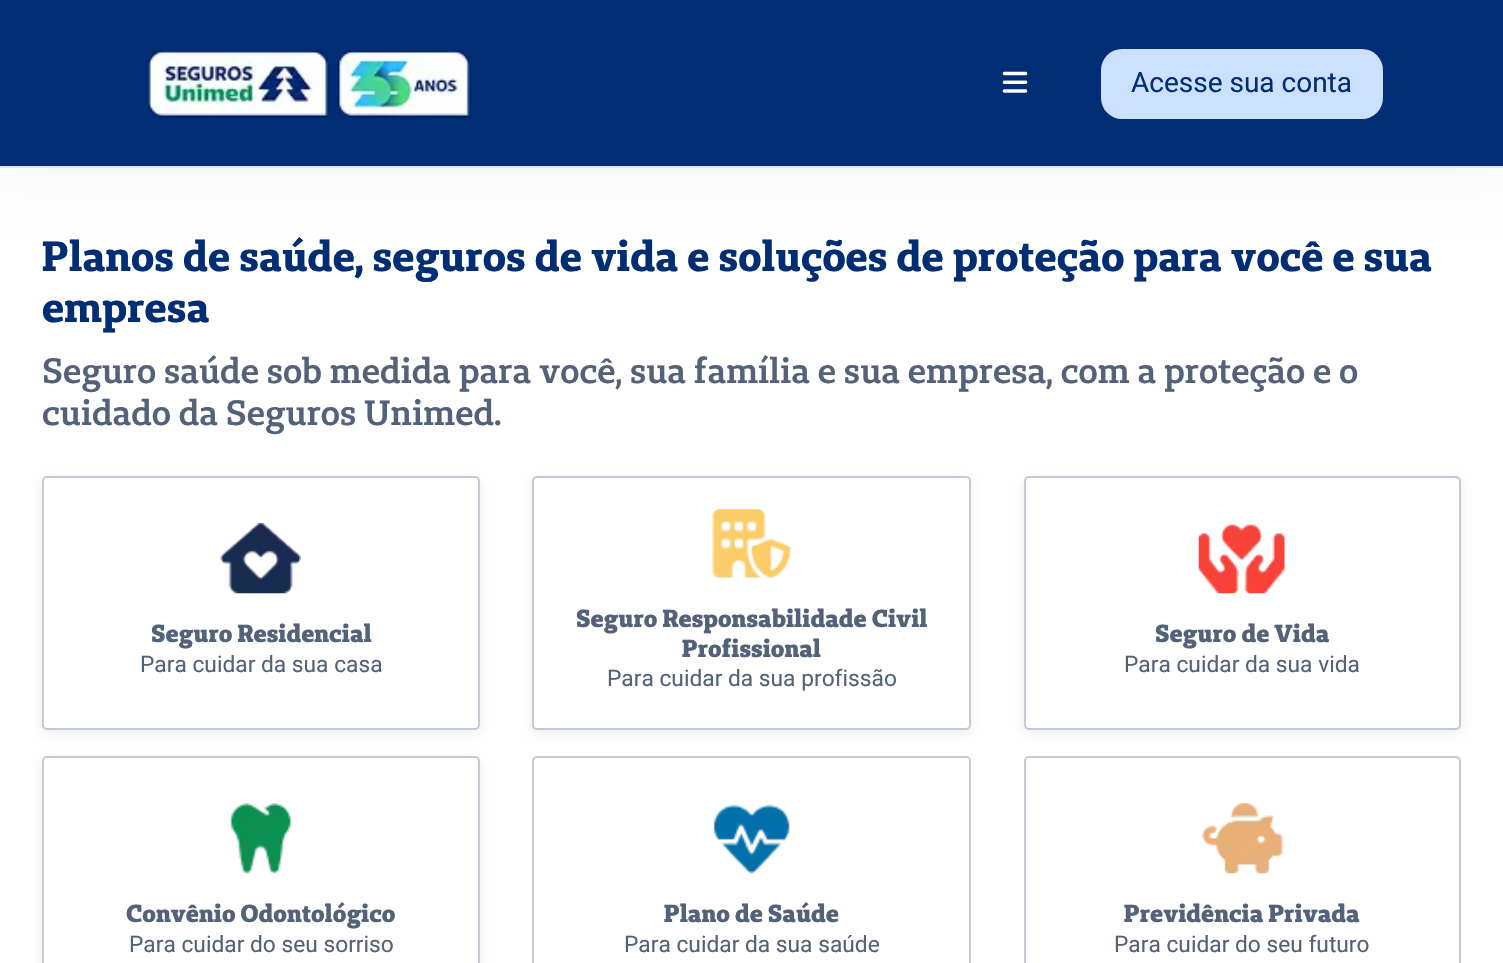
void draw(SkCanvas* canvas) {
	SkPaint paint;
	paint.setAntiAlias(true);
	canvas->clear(0xffffffff);
	paint.setColor(0x0d000000);
	paint.setMaskFilter(SkMaskFilter::MakeBlur(kNormal_SkBlurStyle, 22));
	canvas->drawRect(SkRect::MakeXYWH(0, 4, 1503, 168), paint);
	paint.setMaskFilter(nullptr);
	paint.setColor(0xff002d74);
	canvas->drawRect(SkRect::MakeXYWH(0, 0, 1503, 166), paint);
	paint.setColor(0xffe1e5ea);
	canvas->drawRect(SkRect::MakeXYWH(0, 166, 1503, 2), paint);
	canvas->drawImageRect(SkImages::DeferredFromEncodedData(SkData::MakeFromFileName("img1.png")), SkRect::MakeXYWH(147, 50, 324, 68), SkSamplingOptions());
	canvas->drawImageRect(SkImages::DeferredFromEncodedData(SkData::MakeFromFileName("img2.png")), SkRect::MakeXYWH(1002, 71, 26, 22), SkSamplingOptions());
	paint.setColor(0xffcce0ff);
	canvas->drawRoundRect(SkRect::MakeXYWH(1101, 49, 282, 70), 21, 21, paint);
	SkFont f1(fontMgr->matchFamilyStyle("Roboto", SkFontStyle::Normal()), 28);
	f1.setSubpixel(true);
	paint.setColor(0xff002d74);
	canvas->drawString("Acesse sua conta", 1131, 92, f1, paint);
	SkFont f2(fontMgr->matchFamilyStyle("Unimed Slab", SkFontStyle::Bold()), 42);
	f2.setSubpixel(true);
	canvas->drawString("Planos de saúde, seguros de vida e soluções de proteção para você e sua", 42, 271, f2, paint);
	canvas->drawString("empresa", 42, 322, f2, paint);
	SkFont f3(fontMgr->matchFamilyStyle("Unimed Slab", SkFontStyle(600, SkFontStyle::kNormal_Width, SkFontStyle::kUpright_Slant)), 35);
	f3.setSubpixel(true);
	paint.setColor(0xff536279);
	canvas->drawString("Seguro saúde sob medida para você, sua família e sua empresa, com a proteção e o", 42, 383, f3, paint);
	canvas->drawString("cuidado da Seguros Unimed.", 42, 425, f3, paint);
	paint.setColor(0x14000000);
	paint.setMaskFilter(SkMaskFilter::MakeBlur(kNormal_SkBlurStyle, 5));
	canvas->drawRoundRect(SkRect::MakeXYWH(42, 480, 438, 253), 5, 5, paint);
	paint.setMaskFilter(nullptr);
	paint.setColor(0xffffffff);
	canvas->drawRoundRect(SkRect::MakeXYWH(43, 477, 436, 252), 4, 4, paint);
	paint.setStroke(true);
	paint.setStrokeWidth(2);
	paint.setColor(0xffc2cad6);
	canvas->drawRoundRect(SkRect::MakeXYWH(43, 477, 436, 252), 4, 4, paint);
	canvas->drawImageRect(SkImages::DeferredFromEncodedData(SkData::MakeFromFileName("img3.png")), SkRect::MakeXYWH(220, 523, 81, 71), SkSamplingOptions());
	SkFont f4(fontMgr->matchFamilyStyle("Unimed Slab", SkFontStyle(800, SkFontStyle::kNormal_Width, SkFontStyle::kUpright_Slant)), 24.5);
	f4.setSubpixel(true);
	paint.setStroke(false);
	paint.setColor(0xff536279);
	canvas->drawString("Seguro Residencial", 151, 642, f4, paint);
	SkFont f5(fontMgr->matchFamilyStyle("Roboto", SkFontStyle::Normal()), 22.75);
	f5.setSubpixel(true);
	canvas->drawString("Para cuidar da sua casa", 140, 672, f5, paint);
	paint.setColor(0x14000000);
	paint.setMaskFilter(SkMaskFilter::MakeBlur(kNormal_SkBlurStyle, 5));
	canvas->drawRoundRect(SkRect::MakeXYWH(532, 480, 439, 253), 5, 5, paint);
	paint.setMaskFilter(nullptr);
	paint.setColor(0xffffffff);
	canvas->drawRoundRect(SkRect::MakeXYWH(533, 477, 437, 252), 4, 4, paint);
	paint.setStroke(true);
	paint.setColor(0xffc2cad6);
	canvas->drawRoundRect(SkRect::MakeXYWH(533, 477, 437, 252), 4, 4, paint);
	canvas->drawImageRect(SkImages::DeferredFromEncodedData(SkData::MakeFromFileName("img4.png")), SkRect::MakeXYWH(712, 509, 79, 69), SkSamplingOptions());
	paint.setStroke(false);
	paint.setColor(0xff536279);
	canvas->drawString("Seguro Responsabilidade Civil", 576, 627, f4, paint);
	canvas->drawString("Profissional", 682, 657, f4, paint);
	canvas->drawString("Para cuidar da sua profissão", 607, 686, f5, paint);
	paint.setColor(0x14000000);
	paint.setMaskFilter(SkMaskFilter::MakeBlur(kNormal_SkBlurStyle, 5));
	canvas->drawRoundRect(SkRect::MakeXYWH(1024, 480, 437, 253), 5, 5, paint);
	paint.setMaskFilter(nullptr);
	paint.setColor(0xffffffff);
	canvas->drawRoundRect(SkRect::MakeXYWH(1025, 477, 435, 252), 4, 4, paint);
	paint.setStroke(true);
	paint.setColor(0xffc2cad6);
	canvas->drawRoundRect(SkRect::MakeXYWH(1025, 477, 435, 252), 4, 4, paint);
	canvas->drawImageRect(SkImages::DeferredFromEncodedData(SkData::MakeFromFileName("img5.png")), SkRect::MakeXYWH(1198, 524, 87, 70), SkSamplingOptions());
	paint.setStroke(false);
	paint.setColor(0xff536279);
	canvas->drawString("Seguro de Vida", 1155, 642, f4, paint);
	canvas->drawString("Para cuidar da sua vida", 1124, 672, f5, paint);
	paint.setColor(0x14000000);
	paint.setMaskFilter(SkMaskFilter::MakeBlur(kNormal_SkBlurStyle, 5));
	canvas->drawRoundRect(SkRect::MakeXYWH(42, 760, 438, 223), 5, 5, paint);
	paint.setMaskFilter(nullptr);
	paint.setColor(0xffffffff);
	canvas->drawRoundRect(SkRect::MakeXYWH(43, 757, 436, 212), 4, 4, paint);
	paint.setStroke(true);
	paint.setColor(0xffc2cad6);
	canvas->drawRoundRect(SkRect::MakeXYWH(43, 757, 436, 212), 4, 4, paint);
	canvas->drawImageRect(SkImages::DeferredFromEncodedData(SkData::MakeFromFileName("img6.png")), SkRect::MakeXYWH(230, 803, 61, 71), SkSamplingOptions());
	paint.setStroke(false);
	paint.setColor(0xff536279);
	canvas->drawString("Convênio Odontológico", 126, 922, f4, paint);
	canvas->drawString("Para cuidar do seu sorriso", 129, 952, f5, paint);
	paint.setStroke(true);
	paint.setColor(0xffc2cad6);
	canvas->drawRoundRect(SkRect::MakeXYWH(533, 757, 437, 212), 4, 4, paint);
	canvas->drawImageRect(SkImages::DeferredFromEncodedData(SkData::MakeFromFileName("img7.png")), SkRect::MakeXYWH(713, 804, 77, 70), SkSamplingOptions());
	paint.setStroke(false);
	paint.setColor(0xff536279);
	canvas->drawString("Plano de Saúde", 664, 922, f4, paint);
	canvas->drawString("Para cuidar da sua saúde", 624, 952, f5, paint);
	paint.setStroke(true);
	paint.setColor(0xffc2cad6);
	canvas->drawRoundRect(SkRect::MakeXYWH(1025, 757, 435, 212), 4, 4, paint);
	canvas->drawImageRect(SkImages::DeferredFromEncodedData(SkData::MakeFromFileName("img8.png")), SkRect::MakeXYWH(1202, 803, 81, 71), SkSamplingOptions());
	paint.setStroke(false);
	paint.setColor(0xff536279);
	canvas->drawString("Previdência Privada", 1124, 922, f4, paint);
	canvas->drawString("Para cuidar do seu futuro", 1114, 952, f5, paint);
}
